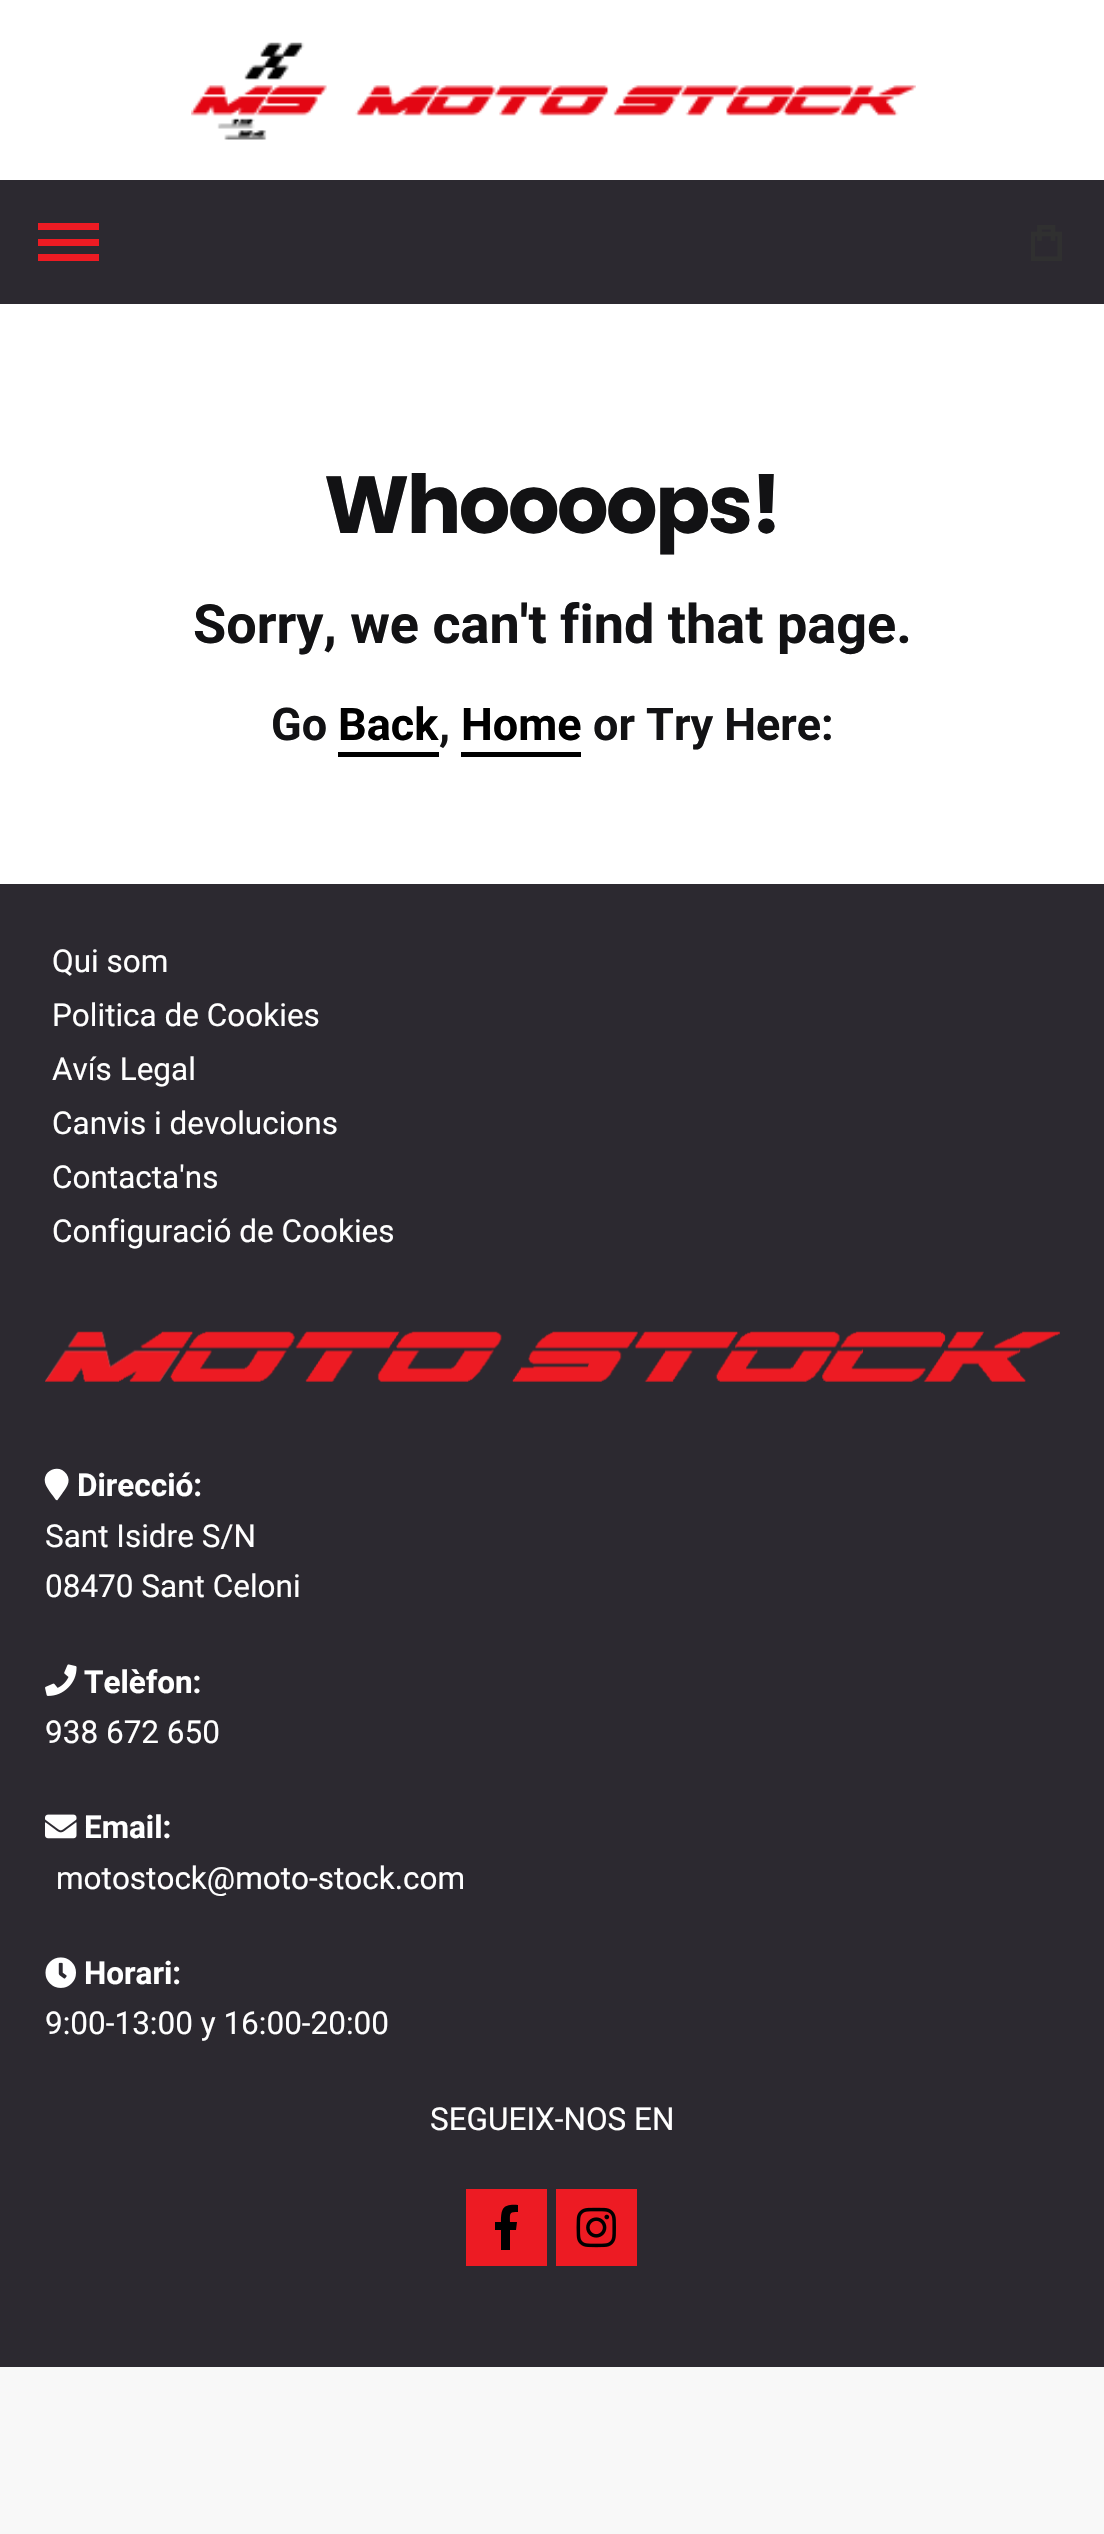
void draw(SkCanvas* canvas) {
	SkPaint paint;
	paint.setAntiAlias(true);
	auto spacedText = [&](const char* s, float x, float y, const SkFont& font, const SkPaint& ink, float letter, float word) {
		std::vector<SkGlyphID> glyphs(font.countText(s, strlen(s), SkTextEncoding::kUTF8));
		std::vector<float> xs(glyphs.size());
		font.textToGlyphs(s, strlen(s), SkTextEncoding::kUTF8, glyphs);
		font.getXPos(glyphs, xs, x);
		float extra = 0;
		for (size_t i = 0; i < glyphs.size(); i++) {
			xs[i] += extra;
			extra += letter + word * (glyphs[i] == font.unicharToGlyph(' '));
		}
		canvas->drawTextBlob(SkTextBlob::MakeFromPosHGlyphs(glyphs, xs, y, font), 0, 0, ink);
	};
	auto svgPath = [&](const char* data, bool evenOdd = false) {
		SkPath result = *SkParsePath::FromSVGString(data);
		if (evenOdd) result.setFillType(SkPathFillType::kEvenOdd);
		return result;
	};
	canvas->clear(0xffffffff);
	paint.setColor(0xff2c2930);
	canvas->drawRect(SkRect::MakeXYWH(0, 180, 1104, 124), paint);
	canvas->drawImageRect(SkImages::DeferredFromEncodedData(SkData::MakeFromFileName("img1.png")), SkRect::MakeXYWH(191, 42, 725, 98), SkSamplingOptions());
	paint.setColor(0xffed1b23);
	canvas->drawRect(SkRect::MakeXYWH(38, 223, 61, 7), paint);
	canvas->drawRect(SkRect::MakeXYWH(38, 239, 61, 7), paint);
	canvas->drawRect(SkRect::MakeXYWH(38, 254, 61, 7), paint);
	canvas->drawImageRect(SkImages::DeferredFromEncodedData(SkData::MakeFromFileName("img2.png")), SkRect::MakeXYWH(1031, 225, 31, 36), SkSamplingOptions());
	SkFont f1(fontMgr->matchFamilyStyle("Poppins", SkFontStyle::Bold()), 81);
	f1.setSubpixel(true);
	paint.setColor(0xff121214);
	spacedText("Whoooops!", 324, 533, f1, paint, -2.5, 0);
	SkFont f2(fontMgr->matchFamilyStyle("Roboto", SkFontStyle::Bold()), 54);
	f2.setSubpixel(true);
	canvas->drawString("Sorry, we can't find that page.", 193, 643, f2, paint);
	SkFont f3(fontMgr->matchFamilyStyle("Roboto", SkFontStyle::Bold()), 45);
	f3.setSubpixel(true);
	canvas->drawString("Go", 271, 740, f3, paint);
	paint.setColor(0xff000000);
	canvas->drawString("Back", 338, 740, f3, paint);
	canvas->drawRect(SkRect::MakeXYWH(338, 752, 101, 5), paint);
	paint.setColor(0xff121214);
	canvas->drawString(",", 439, 740, f3, paint);
	paint.setColor(0xff000000);
	canvas->drawString("Home", 461, 740, f3, paint);
	canvas->drawRect(SkRect::MakeXYWH(461, 752, 120, 5), paint);
	paint.setColor(0xff121214);
	canvas->drawString("or Try Here:", 593, 740, f3, paint);
	paint.setColor(0xff2c2930);
	canvas->drawRect(SkRect::MakeXYWH(0, 884, 1104, 1483), paint);
	SkFont f4(fontMgr->matchFamilyStyle("Roboto", SkFontStyle::Normal()), 31.5);
	f4.setSubpixel(true);
	paint.setColor(0xffffffff);
	canvas->drawString("Qui som", 52, 972, f4, paint);
	canvas->drawString("Politica de Cookies", 52, 1026, f4, paint);
	canvas->drawString("Avís Legal", 52, 1080, f4, paint);
	canvas->drawString("Canvis i devolucions", 52, 1134, f4, paint);
	canvas->drawString("Contacta'ns", 52, 1188, f4, paint);
	canvas->drawString("Configuració de Cookies", 52, 1242, f4, paint);
	canvas->drawImageRect(SkImages::DeferredFromEncodedData(SkData::MakeFromFileName("img3.png")), SkRect::MakeXYWH(45, 1331, 1015, 51), SkSamplingOptions());
	canvas->drawPath(svgPath("M55.5 1499.5C53 1495.5 46 1487.5 45 1482.5C42.5 1470 59.5 1463.5 66.5 1474C72 1482 65.5 1488.5 61.5 1494.5L57.5 1500C57 1500.5 56 1500 55.5 1499.5Z"), paint);
	SkFont f5(fontMgr->matchFamilyStyle("Roboto", SkFontStyle::Bold()), 31.5);
	f5.setSubpixel(true);
	canvas->drawString("Direcció:", 77, 1496, f5, paint);
	canvas->drawString("Sant Isidre S/N", 45, 1547, f4, paint);
	canvas->drawString("08470 Sant Celoni", 45, 1597, f4, paint);
	canvas->drawImageRect(SkImages::DeferredFromEncodedData(SkData::MakeFromFileName("img4.png")), SkRect::MakeXYWH(45, 1664, 32, 32), SkSamplingOptions());
	canvas->drawString("Telèfon:", 84, 1693, f5, paint);
	canvas->drawString("938 672 650", 45, 1743, f4, paint);
	canvas->drawImageRect(SkImages::DeferredFromEncodedData(SkData::MakeFromFileName("img5.png")), SkRect::MakeXYWH(45, 1814, 32, 25), SkSamplingOptions());
	canvas->drawString("Email:", 84, 1838, f5, paint);
	canvas->drawString("motostock@moto-stock.com", 56, 1889, f4, paint);
	canvas->drawImageRect(SkImages::DeferredFromEncodedData(SkData::MakeFromFileName("img6.png")), SkRect::MakeXYWH(45, 1957, 31, 31), SkSamplingOptions());
	canvas->drawString("Horari:", 84, 1984, f5, paint);
	canvas->drawString("9:00-13:00 y 16:00-20:00", 45, 2034, f4, paint);
	canvas->drawString("SEGUEIX-NOS EN", 430, 2130, f4, paint);
	paint.setColor(0xffed1b23);
	canvas->drawRect(SkRect::MakeXYWH(466, 2189, 81, 77), paint);
	paint.setColor(0xff000000);
	canvas->drawPath(svgPath("M510 2250V2230H516L517 2222H510C510 2213 509 2212 518 2212V2205C503 2204 501 2208 501 2222H495V2230H501V2250Z"), paint);
	paint.setColor(0xffed1b23);
	canvas->drawRect(SkRect::MakeXYWH(556, 2189, 81, 77), paint);
	canvas->drawImageRect(SkImages::DeferredFromEncodedData(SkData::MakeFromFileName("img7.png")), SkRect::MakeXYWH(576, 2207, 40, 41), SkSamplingOptions());
	paint.setColor(0xfff8f8f8);
	canvas->drawRect(SkRect::MakeXYWH(0, 2367, 1104, 167), paint);
}
